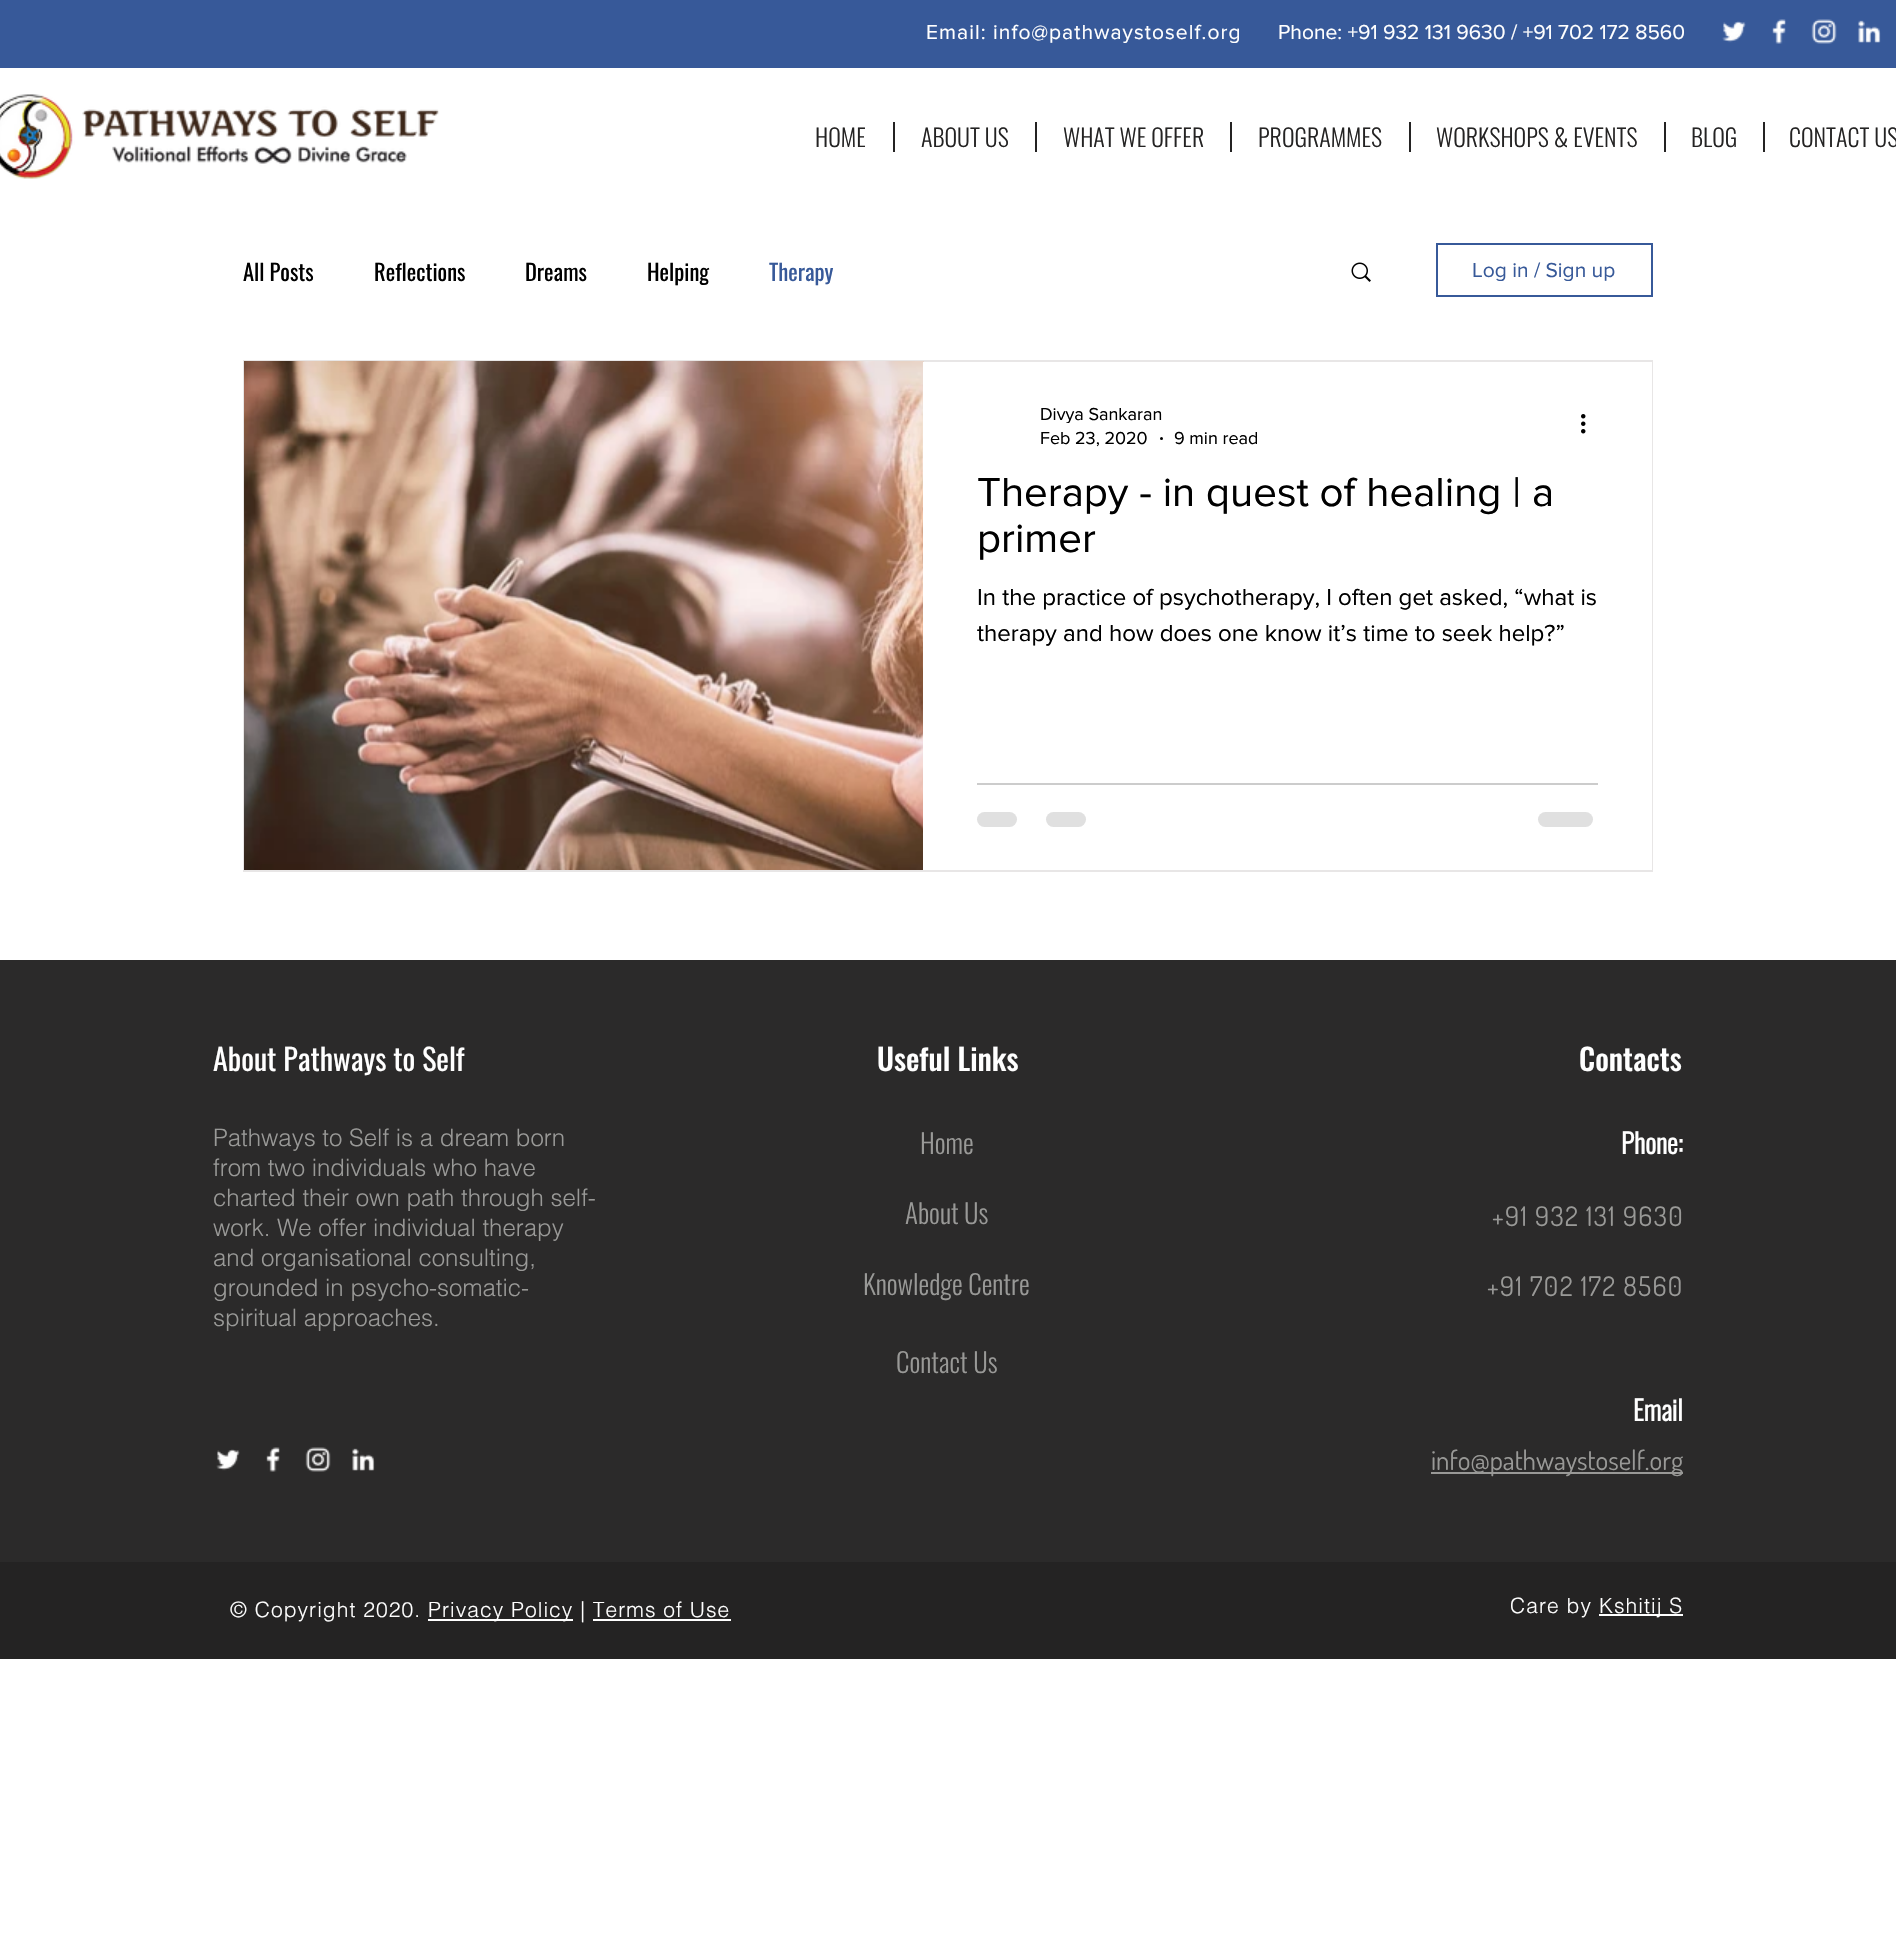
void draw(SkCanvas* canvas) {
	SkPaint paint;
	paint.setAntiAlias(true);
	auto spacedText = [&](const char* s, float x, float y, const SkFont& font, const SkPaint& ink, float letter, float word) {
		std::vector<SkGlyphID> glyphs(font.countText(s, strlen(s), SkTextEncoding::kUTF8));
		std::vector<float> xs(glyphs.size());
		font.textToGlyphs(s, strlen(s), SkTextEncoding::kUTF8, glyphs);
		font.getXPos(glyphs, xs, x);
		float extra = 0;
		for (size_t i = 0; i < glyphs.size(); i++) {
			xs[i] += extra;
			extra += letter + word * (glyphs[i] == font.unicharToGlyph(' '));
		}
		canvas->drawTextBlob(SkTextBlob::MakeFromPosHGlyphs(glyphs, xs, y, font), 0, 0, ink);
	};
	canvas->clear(0xffffffff);
	paint.setColor(0xff375999);
	canvas->drawRect(SkRect::MakeXYWH(0, 0, 1896, 68), paint);
	SkFont f1(fontMgr->matchFamilyStyle("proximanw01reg", SkFontStyle::Normal()), 21);
	f1.setSubpixel(true);
	paint.setColor(0xffffffff);
	spacedText("Email: info@pathwaystoself.org", 926, 39, f1, paint, 1.05, 0);
	canvas->drawString("Phone: +91 932 131 9630 / +91 702 172 8560", 1278, 39, f1, paint);
	canvas->drawImageRect(SkImages::DeferredFromEncodedData(SkData::MakeFromFileName("img1.png")), SkRect::MakeXYWH(1722, 21, 24, 22), SkSamplingOptions());
	canvas->drawImageRect(SkImages::DeferredFromEncodedData(SkData::MakeFromFileName("img2.png")), SkRect::MakeXYWH(1772, 19, 14, 25), SkSamplingOptions());
	canvas->drawImageRect(SkImages::DeferredFromEncodedData(SkData::MakeFromFileName("img3.png")), SkRect::MakeXYWH(1811, 19, 26, 25), SkSamplingOptions());
	canvas->drawImageRect(SkImages::DeferredFromEncodedData(SkData::MakeFromFileName("img4.png")), SkRect::MakeXYWH(1858, 20, 23, 23), SkSamplingOptions());
	canvas->drawImageRect(SkImages::DeferredFromEncodedData(SkData::MakeFromFileName("img5.png")), SkRect::MakeXYWH(0, 94, 439, 85), SkSamplingOptions());
	SkFont f2(fontMgr->matchFamilyStyle("Oswald", SkFontStyle(300, SkFontStyle::kNormal_Width, SkFontStyle::kUpright_Slant)), 24);
	f2.setSubpixel(true);
	paint.setColor(0xff242323);
	canvas->drawString("HOME", 815, 147, f2, paint);
	canvas->drawRect(SkRect::MakeXYWH(893, 122, 2, 30), paint);
	canvas->drawString("ABOUT US", 921, 147, f2, paint);
	canvas->drawRect(SkRect::MakeXYWH(1035, 122, 2, 30), paint);
	canvas->drawString("WHAT WE OFFER", 1063, 147, f2, paint);
	canvas->drawRect(SkRect::MakeXYWH(1230, 122, 2, 30), paint);
	canvas->drawString("PROGRAMMES", 1258, 147, f2, paint);
	canvas->drawRect(SkRect::MakeXYWH(1409, 122, 2, 30), paint);
	canvas->drawString("WORKSHOPS & EVENTS", 1436, 147, f2, paint);
	canvas->drawRect(SkRect::MakeXYWH(1664, 122, 2, 30), paint);
	canvas->drawString("BLOG", 1691, 147, f2, paint);
	canvas->drawRect(SkRect::MakeXYWH(1763, 122, 2, 30), paint);
	canvas->drawString("CONTACT US", 1789, 147, f2, paint);
	SkFont f3(fontMgr->matchFamilyStyle("Oswald", SkFontStyle::Normal()), 22.5);
	f3.setSubpixel(true);
	paint.setColor(0xff000000);
	canvas->drawString("All Posts", 243, 281, f3, paint);
	canvas->drawString("Reflections", 374, 281, f3, paint);
	canvas->drawString("Dreams", 525, 281, f3, paint);
	canvas->drawString("Helping", 647, 281, f3, paint);
	paint.setColor(0xff375999);
	canvas->drawString("Therapy", 769, 281, f3, paint);
	canvas->drawImageRect(SkImages::DeferredFromEncodedData(SkData::MakeFromFileName("img6.png")), SkRect::MakeXYWH(1351, 262, 20, 20), SkSamplingOptions());
	paint.setStroke(true);
	paint.setStrokeWidth(2);
	canvas->drawRect(SkRect::MakeXYWH(1437, 244, 215, 52), paint);
	paint.setStroke(false);
	canvas->drawString("Log in / Sign up", 1472, 277, f1, paint);
	paint.setStroke(true);
	paint.setColor(0xffe8e6e6);
	canvas->drawRect(SkRect::MakeXYWH(244, 361, 1408, 510), paint);
	canvas->drawImageRect(SkImages::DeferredFromEncodedData(SkData::MakeFromFileName("img8.png")), SkRect::MakeXYWH(923, 361, 1, 1), SkSamplingOptions());
	canvas->drawImageRect(SkImages::DeferredFromEncodedData(SkData::MakeFromFileName("img7.png")), SkRect::MakeXYWH(244, 361, 680, 509), SkSamplingOptions());
	paint.setStroke(false);
	paint.setColor(0xffffffff);
	canvas->drawRect(SkRect::MakeXYWH(923, 362, 729, 508), paint);
	canvas->save();
	canvas->clipRect(SkRect::MakeXYWH(1040, 404, 123, 19));
	SkFont f4(fontMgr->matchFamilyStyle("proximanw01reg", SkFontStyle::Normal()), 18);
	f4.setSubpixel(true);
	paint.setColor(0xff000000);
	canvas->drawString("Divya Sankaran", 1040, 420, f4, paint);
	canvas->restore();
	canvas->drawString("Feb 23, 2020", 1040, 444, f4, paint);
	canvas->drawCircle(1161.5, 438.5, 1.5, paint);
	canvas->drawString("9 min read", 1174, 444, f4, paint);
	canvas->drawImageRect(SkImages::DeferredFromEncodedData(SkData::MakeFromFileName("img9.png")), SkRect::MakeXYWH(1581, 414, 5, 20), SkSamplingOptions());
	SkFont f5(fontMgr->matchFamilyStyle("proximanw01reg", SkFontStyle::Normal()), 42);
	f5.setSubpixel(true);
	canvas->drawString("Therapy - in quest of healing | a", 977, 506, f5, paint);
	canvas->drawString("primer", 977, 552, f5, paint);
	SkFont f6(fontMgr->matchFamilyStyle("proximanw01reg", SkFontStyle::Normal()), 24);
	f6.setSubpixel(true);
	canvas->drawString("In the practice of psychotherapy, I often get asked, “what is", 977, 605, f6, paint);
	canvas->drawString("therapy and how does one know it’s time to seek help?”", 977, 641, f6, paint);
	paint.setColor(0xffcccccc);
	canvas->drawRect(SkRect::MakeXYWH(977, 783, 621, 2), paint);
	paint.setColor(0xffe0e0e0);
	canvas->drawRoundRect(SkRect::MakeXYWH(977, 812, 40, 15), 7.5, 7.5, paint);
	canvas->drawRoundRect(SkRect::MakeXYWH(1046, 812, 40, 15), 7.5, 7.5, paint);
	canvas->drawRoundRect(SkRect::MakeXYWH(1538, 812, 55, 15), 7.5, 7.5, paint);
	paint.setColor(0xff2b2a2a);
	canvas->drawRect(SkRect::MakeXYWH(0, 960, 1896, 602), paint);
	SkFont f7(fontMgr->matchFamilyStyle("Oswald", SkFontStyle::Normal()), 30);
	f7.setSubpixel(true);
	paint.setColor(0xffffffff);
	canvas->drawString("About Pathways to Self", 213, 1071, f7, paint);
	SkFont f8(fontMgr->matchFamilyStyle("Oswald", SkFontStyle(500, SkFontStyle::kNormal_Width, SkFontStyle::kUpright_Slant)), 30);
	f8.setSubpixel(true);
	canvas->drawString("Useful Links", 877, 1071, f8, paint);
	canvas->drawString("Contacts", 1579, 1071, f8, paint);
	SkFont f9(fontMgr->matchFamilyStyle("helvetica", SkFontStyle(300, SkFontStyle::kNormal_Width, SkFontStyle::kUpright_Slant)), 24);
	f9.setSubpixel(true);
	paint.setColor(0xff999997);
	canvas->drawString("Pathways to Self is a dream born", 213, 1146, f9, paint);
	canvas->drawString("from two individuals who have", 213, 1176, f9, paint);
	canvas->drawString("charted their own path through self-", 213, 1206, f9, paint);
	canvas->drawString("work. We offer individual therapy", 213, 1236, f9, paint);
	canvas->drawString("and organisational consulting,", 213, 1266, f9, paint);
	canvas->drawString("grounded in psycho-somatic-", 213, 1296, f9, paint);
	canvas->drawString("spiritual approaches.", 213, 1326, f9, paint);
	SkFont f10(fontMgr->matchFamilyStyle("Oswald", SkFontStyle(300, SkFontStyle::kNormal_Width, SkFontStyle::kUpright_Slant)), 27);
	f10.setSubpixel(true);
	canvas->drawString("Home", 920, 1154, f10, paint);
	SkFont f11(fontMgr->matchFamilyStyle("Oswald", SkFontStyle::Bold()), 27);
	f11.setSubpixel(true);
	paint.setColor(0xffffffff);
	canvas->drawString("Phone:", 1621, 1154, f11, paint);
	paint.setColor(0xff999997);
	canvas->drawString("About Us", 905, 1224, f10, paint);
	SkFont f12(fontMgr->matchFamilyStyle("Dosis", SkFontStyle::Normal()), 27);
	f12.setSubpixel(true);
	spacedText("+91 932 131 9630", 1492, 1226, f12, paint, 1.4, 0);
	canvas->drawString("Knowledge Centre", 863, 1295, f10, paint);
	spacedText("+91 702 172 8560", 1487, 1296, f12, paint, 1.4, 0);
	canvas->drawString("Contact Us", 896, 1373, f10, paint);
	paint.setColor(0xffffffff);
	canvas->drawString("Email", 1633, 1421, f11, paint);
	canvas->drawImageRect(SkImages::DeferredFromEncodedData(SkData::MakeFromFileName("img10.png")), SkRect::MakeXYWH(216, 1449, 24, 22), SkSamplingOptions());
	canvas->drawImageRect(SkImages::DeferredFromEncodedData(SkData::MakeFromFileName("img11.png")), SkRect::MakeXYWH(266, 1447, 14, 25), SkSamplingOptions());
	canvas->drawImageRect(SkImages::DeferredFromEncodedData(SkData::MakeFromFileName("img12.png")), SkRect::MakeXYWH(305, 1447, 26, 25), SkSamplingOptions());
	canvas->drawImageRect(SkImages::DeferredFromEncodedData(SkData::MakeFromFileName("img13.png")), SkRect::MakeXYWH(352, 1448, 23, 23), SkSamplingOptions());
	paint.setColor(0xff999997);
	canvas->drawRect(SkRect::MakeXYWH(1431, 1472, 252, 2), paint);
	canvas->drawString("info@pathwaystoself.org", 1431, 1470, f12, paint);
	paint.setColor(0xff242323);
	canvas->drawRect(SkRect::MakeXYWH(0, 1562, 1896, 97), paint);
	SkFont f13(fontMgr->matchFamilyStyle("helvetica", SkFontStyle(300, SkFontStyle::kNormal_Width, SkFontStyle::kUpright_Slant)), 21);
	f13.setSubpixel(true);
	paint.setColor(0xffffffff);
	spacedText("© Copyright 2020.", 230, 1617, f13, paint, 1.05, 0);
	canvas->drawRect(SkRect::MakeXYWH(428, 1619, 145, 2), paint);
	spacedText("Privacy Policy | Terms of Use", 428, 1617, f13, paint, 1.05, 0);
	canvas->drawRect(SkRect::MakeXYWH(593, 1619, 138, 2), paint);
	spacedText("Care by", 1510, 1613, f13, paint, 1.05, 0);
	canvas->drawRect(SkRect::MakeXYWH(1599, 1614, 84, 2), paint);
	spacedText("Kshitij S", 1599, 1613, f13, paint, 1.05, 0);
}
